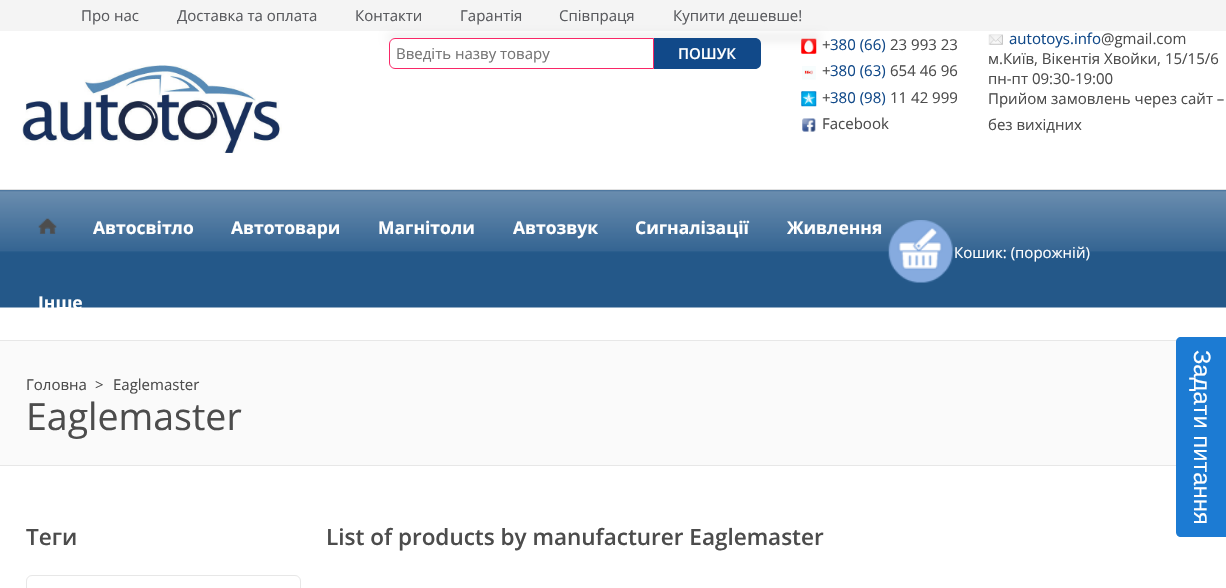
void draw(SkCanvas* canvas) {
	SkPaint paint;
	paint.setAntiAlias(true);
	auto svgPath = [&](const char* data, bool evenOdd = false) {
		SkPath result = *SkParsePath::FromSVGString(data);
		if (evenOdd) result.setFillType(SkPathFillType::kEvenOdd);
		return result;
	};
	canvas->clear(0xffffffff);
	paint.setColor(0xfff4f4f4);
	canvas->drawRect(SkRect::MakeXYWH(0, 0, 1226, 31), paint);
	SkFont f1(fontMgr->matchFamilyStyle("Open Sans", SkFontStyle::Normal()), 15);
	f1.setSubpixel(true);
	paint.setColor(0xff595a5e);
	canvas->drawString("Про нас", 81, 21, f1, paint);
	canvas->drawString("Доставка та оплата", 177, 21, f1, paint);
	canvas->drawString("Контакти", 355, 21, f1, paint);
	canvas->drawString("Гарантія", 460, 21, f1, paint);
	canvas->drawString("Співпраця", 559, 21, f1, paint);
	canvas->drawString("Купити дешевше!", 673, 21, f1, paint);
	canvas->drawImageRect(SkImages::DeferredFromEncodedData(SkData::MakeFromFileName("img1.png")), SkRect::MakeXYWH(801, 38, 16, 16), SkSamplingOptions());
	paint.setColor(0xffd3d3d3);
	paint.setMaskFilter(SkMaskFilter::MakeBlur(kNormal_SkBlurStyle, 5));
	canvas->drawRect(SkRect::MakeXYWH(388, 36, 432, 3), paint);
	paint.setMaskFilter(nullptr);
	paint.setColor(0xffffffff);
	canvas->drawPath(svgPath("M395 38.5H653.5V68.5H395C392 68.5 389.5 66 389.5 63V44C389.5 41 392 38.5 395 38.5Z"), paint);
	paint.setStroke(true);
	paint.setStrokeWidth(1);
	paint.setColor(0xfff92767);
	canvas->drawPath(svgPath("M395 38.5H653.5V68.5H395C392 68.5 389.5 66 389.5 63V44C389.5 41 392 38.5 395 38.5Z"), paint);
	paint.setStroke(false);
	paint.setColor(0xff757575);
	canvas->drawString("Введіть назву товару", 396, 59, f1, paint);
	paint.setColor(0xff114989);
	canvas->drawPath(svgPath("M654 38H755C758.5 38 761 40.5 761 44V63C761 66.5 758.5 69 755 69H654Z"), paint);
	SkFont f2(fontMgr->matchFamilyStyle("Open Sans", SkFontStyle(600, SkFontStyle::kNormal_Width, SkFontStyle::kUpright_Slant)), 15);
	f2.setSubpixel(true);
	paint.setColor(0xffffffff);
	canvas->drawString("ПОШУК", 678, 59, f2, paint);
	paint.setColor(0xff4c4c4c);
	canvas->drawString("+", 822, 50, f1, paint);
	paint.setColor(0xff114989);
	canvas->drawString("380 (66)", 830, 50, f1, paint);
	paint.setColor(0xff4c4c4c);
	canvas->drawString("23 993 23", 890, 50, f1, paint);
	canvas->drawImageRect(SkImages::DeferredFromEncodedData(SkData::MakeFromFileName("img2.png")), SkRect::MakeXYWH(802, 66, 14, 14), SkSamplingOptions());
	canvas->drawString("+", 822, 76, f1, paint);
	paint.setColor(0xff114989);
	canvas->drawString("380 (63)", 830, 76, f1, paint);
	paint.setColor(0xff4c4c4c);
	canvas->drawString("654 46 96", 890, 76, f1, paint);
	canvas->drawImageRect(SkImages::DeferredFromEncodedData(SkData::MakeFromFileName("img3.png")), SkRect::MakeXYWH(801, 91, 16, 16), SkSamplingOptions());
	canvas->drawString("+", 822, 103, f1, paint);
	paint.setColor(0xff114989);
	canvas->drawString("380 (98)", 830, 103, f1, paint);
	paint.setColor(0xff4c4c4c);
	canvas->drawString("11 42 999", 890, 103, f1, paint);
	canvas->drawImageRect(SkImages::DeferredFromEncodedData(SkData::MakeFromFileName("img4.png")), SkRect::MakeXYWH(802, 118, 14, 14), SkSamplingOptions());
	canvas->drawString("Facebook", 822, 129, f1, paint);
	canvas->drawImageRect(SkImages::DeferredFromEncodedData(SkData::MakeFromFileName("img5.png")), SkRect::MakeXYWH(988, 34, 15, 11), SkSamplingOptions());
	paint.setColor(0xff114989);
	canvas->drawString("autotoys.info", 1009, 44, f1, paint);
	paint.setColor(0xff4c4c4c);
	canvas->drawString("@gmail.com", 1101, 44, f1, paint);
	canvas->drawString("м.Київ, Вікентія Хвойки, 15/15/6", 988, 64, f1, paint);
	canvas->drawString("пн-пт 09:30-19:00", 988, 84, f1, paint);
	canvas->drawString("Прийом замовлень через сайт –", 988, 104, f1, paint);
	canvas->drawString("без вихідних", 988, 130, f1, paint);
	canvas->drawImageRect(SkImages::DeferredFromEncodedData(SkData::MakeFromFileName("img6.png")), SkRect::MakeXYWH(22, 65, 260, 88), SkSamplingOptions());
	canvas->drawImageRect(SkImages::DeferredFromEncodedData(SkData::MakeFromFileName("img8.png")), SkRect::MakeXYWH(0, 190, 1226, 118), SkSamplingOptions());
	canvas->drawImageRect(SkImages::DeferredFromEncodedData(SkData::MakeFromFileName("img7.png")), SkRect::MakeXYWH(888, 220, 65, 63), SkSamplingOptions());
	paint.setColor(0xffffffff);
	canvas->drawString("Кошик: (порожній)", 954, 258, f1, paint);
	paint.setColor(0xffe1e1e1);
	canvas->drawRect(SkRect::MakeXYWH(0, 189, 1226, 1), paint);
	canvas->drawImageRect(SkImages::DeferredFromEncodedData(SkData::MakeFromFileName("img9.png")), SkRect::MakeXYWH(38, 218, 19, 16), SkSamplingOptions());
	SkFont f3(fontMgr->matchFamilyStyle("Open Sans", SkFontStyle::Bold()), 17.5);
	f3.setSubpixel(true);
	paint.setColor(0xffffffff);
	canvas->drawString("Автосвітло", 93, 234, f3, paint);
	canvas->drawString("Автотовари", 231, 234, f3, paint);
	canvas->drawString("Магнітоли", 378, 234, f3, paint);
	canvas->drawString("Автозвук", 513, 234, f3, paint);
	canvas->drawString("Сигналізації", 635, 234, f3, paint);
	canvas->drawString("Живлення", 787, 234, f3, paint);
	canvas->drawString("Інше", 38, 309, f3, paint);
	paint.setColor(0xfffafafa);
	canvas->drawRect(SkRect::MakeXYWH(0, 341, 1177, 124), paint);
	paint.setColor(0xffe7e7e7);
	canvas->drawRect(SkRect::MakeXYWH(0, 340, 1177, 1), paint);
	canvas->drawRect(SkRect::MakeXYWH(0, 465, 1176, 1), paint);
	paint.setColor(0xff4c4c4c);
	canvas->drawString("Головна", 26, 390, f1, paint);
	canvas->drawString(">", 95, 390, f1, paint);
	canvas->drawString("Eaglemaster", 113, 390, f1, paint);
	SkFont f4(fontMgr->matchFamilyStyle("Open Sans", SkFontStyle::Normal()), 37.5);
	f4.setSubpixel(true);
	canvas->drawString("Eaglemaster", 26, 430, f4, paint);
	paint.setColor(0xff1c7bd3);
	canvas->drawPath(svgPath("M1226 337V537H1181C1178 537 1176 535 1176 532V342C1176 339 1178 337 1181 337Z"), paint);
	SkFont f5(fontMgr->matchFamilyStyle("Liberation Sans", SkFontStyle::Normal()), 23.75);
	f5.setSubpixel(true);
	paint.setColor(0xffffffff);
	canvas->save();
	canvas->rotate(90, 1194, 350);
	canvas->drawString("Задати питання", 1194, 350, f5, paint);
	canvas->restore();
	SkFont f6(fontMgr->matchFamilyStyle("Open Sans", SkFontStyle(600, SkFontStyle::kNormal_Width, SkFontStyle::kUpright_Slant)), 22.5);
	f6.setSubpixel(true);
	paint.setColor(0xff4c4c4c);
	canvas->drawString("Теги", 26, 545, f6, paint);
	paint.setStroke(true);
	paint.setColor(0xffe7e7e7);
	canvas->drawRoundRect(SkRect::MakeXYWH(26.5, 575.5, 274, 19), 5.5, 5.5, paint);
	paint.setStroke(false);
	paint.setColor(0xff4c4c4c);
	canvas->drawString("List of products by manufacturer Eaglemaster", 326, 545, f6, paint);
}
